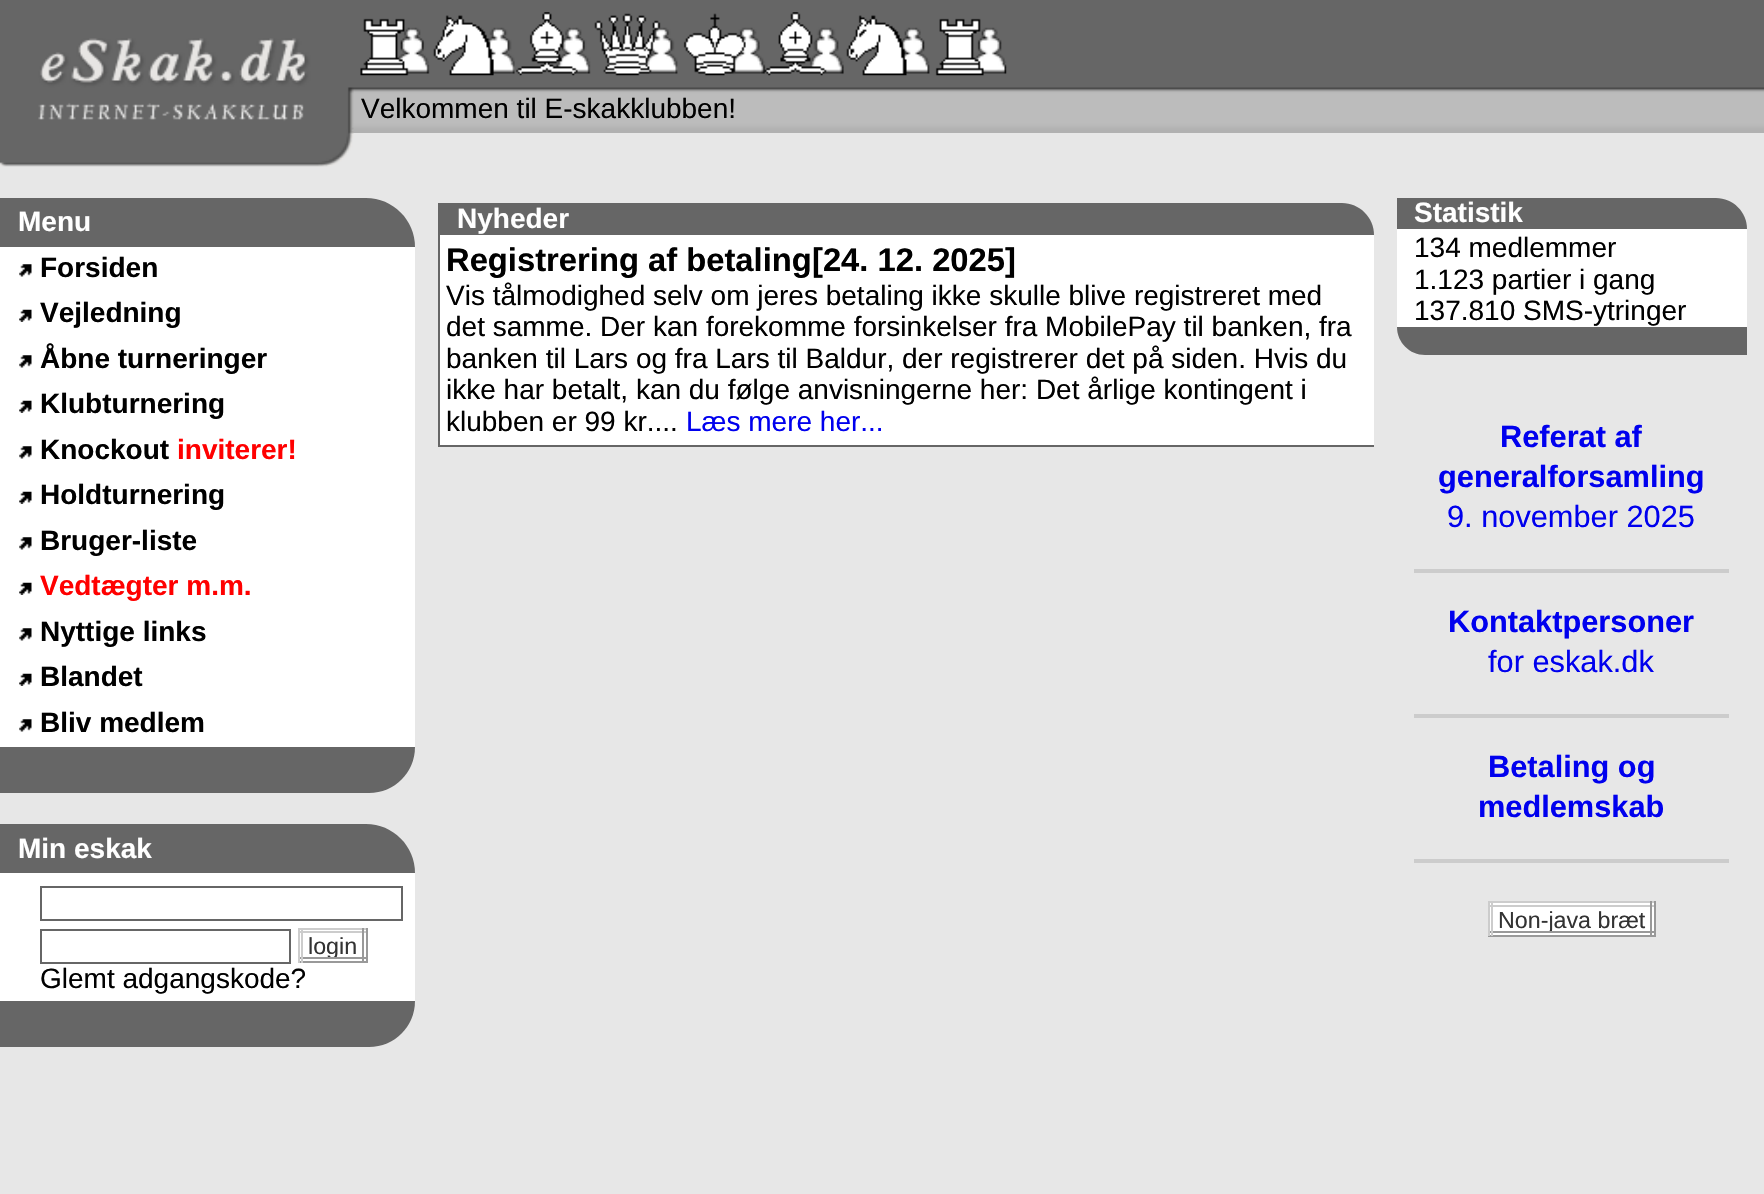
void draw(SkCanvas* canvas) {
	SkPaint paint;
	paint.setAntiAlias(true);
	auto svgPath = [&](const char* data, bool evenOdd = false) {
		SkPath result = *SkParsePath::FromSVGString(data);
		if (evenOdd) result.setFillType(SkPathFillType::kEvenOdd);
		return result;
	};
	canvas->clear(0xffe7e7e7);
	canvas->drawImageRect(SkImages::DeferredFromEncodedData(SkData::MakeFromFileName("img1.png")), SkRect::MakeXYWH(0, 0, 1764, 133), SkSamplingOptions());
	canvas->drawImageRect(SkImages::DeferredFromEncodedData(SkData::MakeFromFileName("img2.png")), SkRect::MakeXYWH(0, 38, 354, 129), SkSamplingOptions());
	canvas->drawImageRect(SkImages::DeferredFromEncodedData(SkData::MakeFromFileName("img3.png")), SkRect::MakeXYWH(360, 12, 647, 64), SkSamplingOptions());
	SkFont f1(fontMgr->matchFamilyStyle("Liberation Sans", SkFontStyle::Normal()), 28);
	f1.setSubpixel(true);
	paint.setColor(0xff000000);
	canvas->drawString("Velkommen til E-skakklubben!", 361, 118, f1, paint);
	paint.setColor(0xff666666);
	canvas->drawPath(svgPath("M0 198H366C393 198 415 220 415 247H0Z"), paint);
	SkFont f2(fontMgr->matchFamilyStyle("Liberation Sans", SkFontStyle::Bold()), 28);
	f2.setSubpixel(true);
	paint.setColor(0xffffffff);
	canvas->drawString("Menu", 18, 231, f2, paint);
	canvas->drawRect(SkRect::MakeXYWH(0, 247, 415, 500), paint);
	canvas->drawImageRect(SkImages::DeferredFromEncodedData(SkData::MakeFromFileName("img4.png")), SkRect::MakeXYWH(19, 264, 13, 13), SkSamplingOptions());
	paint.setColor(0xff000000);
	canvas->drawString("Forsiden", 40, 277, f2, paint);
	canvas->drawImageRect(SkImages::DeferredFromEncodedData(SkData::MakeFromFileName("img5.png")), SkRect::MakeXYWH(19, 309, 13, 13), SkSamplingOptions());
	canvas->drawString("Vejledning", 40, 322, f2, paint);
	canvas->drawImageRect(SkImages::DeferredFromEncodedData(SkData::MakeFromFileName("img4.png")), SkRect::MakeXYWH(19, 355, 13, 13), SkSamplingOptions());
	canvas->drawString("Åbne turneringer", 40, 368, f2, paint);
	canvas->drawImageRect(SkImages::DeferredFromEncodedData(SkData::MakeFromFileName("img5.png")), SkRect::MakeXYWH(19, 400, 13, 13), SkSamplingOptions());
	canvas->drawString("Klubturnering", 40, 413, f2, paint);
	canvas->drawImageRect(SkImages::DeferredFromEncodedData(SkData::MakeFromFileName("img4.png")), SkRect::MakeXYWH(19, 446, 13, 13), SkSamplingOptions());
	canvas->drawString("Knockout", 40, 459, f2, paint);
	paint.setColor(0xffff0000);
	canvas->drawString("inviterer!", 177, 459, f2, paint);
	canvas->drawImageRect(SkImages::DeferredFromEncodedData(SkData::MakeFromFileName("img5.png")), SkRect::MakeXYWH(19, 491, 13, 13), SkSamplingOptions());
	paint.setColor(0xff000000);
	canvas->drawString("Holdturnering", 40, 504, f2, paint);
	canvas->drawImageRect(SkImages::DeferredFromEncodedData(SkData::MakeFromFileName("img4.png")), SkRect::MakeXYWH(19, 537, 13, 13), SkSamplingOptions());
	canvas->drawString("Bruger-liste", 40, 550, f2, paint);
	canvas->drawImageRect(SkImages::DeferredFromEncodedData(SkData::MakeFromFileName("img5.png")), SkRect::MakeXYWH(19, 582, 13, 13), SkSamplingOptions());
	paint.setColor(0xffff0000);
	canvas->drawString("Vedtægter m.m.", 40, 595, f2, paint);
	canvas->drawImageRect(SkImages::DeferredFromEncodedData(SkData::MakeFromFileName("img4.png")), SkRect::MakeXYWH(19, 628, 13, 13), SkSamplingOptions());
	paint.setColor(0xff000000);
	canvas->drawString("Nyttige links", 40, 641, f2, paint);
	canvas->drawImageRect(SkImages::DeferredFromEncodedData(SkData::MakeFromFileName("img5.png")), SkRect::MakeXYWH(19, 673, 13, 13), SkSamplingOptions());
	canvas->drawString("Blandet", 40, 686, f2, paint);
	canvas->drawImageRect(SkImages::DeferredFromEncodedData(SkData::MakeFromFileName("img4.png")), SkRect::MakeXYWH(19, 719, 13, 13), SkSamplingOptions());
	canvas->drawString("Bliv medlem", 40, 732, f2, paint);
	paint.setColor(0xff666666);
	canvas->drawPath(svgPath("M0 747H415C415 772.5 394.5 793 369 793H0Z"), paint);
	canvas->drawPath(svgPath("M0 824H366C393 824 415 846 415 873H0Z"), paint);
	paint.setColor(0xffffffff);
	canvas->drawString("Min eskak", 18, 858, f2, paint);
	canvas->drawRect(SkRect::MakeXYWH(0, 873, 415, 128), paint);
	paint.setStroke(true);
	paint.setStrokeWidth(2);
	paint.setColor(0xff666666);
	canvas->drawRect(SkRect::MakeXYWH(41, 887, 361, 33), paint);
	canvas->drawRect(SkRect::MakeXYWH(41, 930, 249, 33), paint);
	paint.setStroke(false);
	paint.setColor(0xffcccccc);
	canvas->drawRect(SkRect::MakeXYWH(298, 928, 70, 2), paint);
	canvas->drawRect(SkRect::MakeXYWH(298, 931, 70, 2), paint);
	paint.setColor(0xff999999);
	canvas->drawRect(SkRect::MakeXYWH(362, 928, 2, 35), paint);
	canvas->drawRect(SkRect::MakeXYWH(366, 928, 2, 35), paint);
	canvas->drawRect(SkRect::MakeXYWH(298, 957, 70, 2), paint);
	canvas->drawRect(SkRect::MakeXYWH(298, 961, 70, 2), paint);
	paint.setColor(0xffcccccc);
	canvas->drawRect(SkRect::MakeXYWH(298, 928, 2, 35), paint);
	canvas->drawRect(SkRect::MakeXYWH(301, 928, 2, 35), paint);
	canvas->save();
	canvas->clipRect(SkRect::MakeXYWH(303, 933, 59, 24));
	SkFont f3(fontMgr->matchFamilyStyle("Liberation Sans", SkFontStyle::Normal()), 23.25);
	f3.setSubpixel(true);
	paint.setColor(0xff333333);
	canvas->drawString("login", 308, 954, f3, paint);
	canvas->restore();
	paint.setColor(0xff000000);
	canvas->drawString("Glemt adgangskode?", 40, 988, f1, paint);
	paint.setColor(0xff666666);
	canvas->drawPath(svgPath("M0 1001H415C415 1026.5 394.5 1047 369 1047H0Z"), paint);
	canvas->drawRect(SkRect::MakeXYWH(438, 445, 936, 2), paint);
	canvas->drawPath(svgPath("M439 203H1342C1359.5 203 1374 217.5 1374 235H439Z"), paint);
	canvas->drawRect(SkRect::MakeXYWH(438, 203, 2, 243), paint);
	paint.setColor(0xffffffff);
	canvas->drawString("Nyheder", 457, 228, f2, paint);
	canvas->drawRect(SkRect::MakeXYWH(440, 235, 934, 210), paint);
	SkFont f4(fontMgr->matchFamilyStyle("Liberation Sans", SkFontStyle::Bold()), 32.75);
	f4.setSubpixel(true);
	paint.setColor(0xff000000);
	canvas->drawString("Registrering af betaling", 446, 271, f4, paint);
	canvas->drawString("[24. 12. 2025]", 812, 271, f4, paint);
	canvas->drawString("Vis tålmodighed selv om jeres betaling ikke skulle blive registreret med", 446, 305, f1, paint);
	canvas->drawString("det samme. Der kan forekomme forsinkelser fra MobilePay til banken, fra", 446, 336, f1, paint);
	canvas->drawString("banken til Lars og fra Lars til Baldur, der registrerer det på siden. Hvis du", 446, 368, f1, paint);
	canvas->drawString("ikke har betalt, kan du følge anvisningerne her: Det årlige kontingent i", 446, 399, f1, paint);
	canvas->drawString("klubben er 99 kr....", 446, 431, f1, paint);
	paint.setColor(0xff0000ee);
	canvas->drawString("Læs mere her...", 686, 431, f1, paint);
	paint.setColor(0xff666666);
	canvas->drawPath(svgPath("M1397 198H1716C1733 198 1747 212 1747 229H1397Z"), paint);
	paint.setColor(0xffffffff);
	canvas->drawString("Statistik", 1414, 222, f2, paint);
	canvas->drawRect(SkRect::MakeXYWH(1397, 229, 350, 98), paint);
	paint.setColor(0xff000000);
	canvas->drawString("134 medlemmer", 1414, 257, f1, paint);
	canvas->drawString("1.123 partier i gang", 1414, 289, f1, paint);
	canvas->drawString("137.810 SMS-ytringer", 1414, 320, f1, paint);
	paint.setColor(0xff666666);
	canvas->drawPath(svgPath("M1397 327H1747V355H1425C1409.5 355 1397 342.5 1397 327Z"), paint);
	paint.setColor(0xffcccccc);
	canvas->drawRect(SkRect::MakeXYWH(1414, 569, 315, 4), paint);
	SkFont f5(fontMgr->matchFamilyStyle("Liberation Sans", SkFontStyle::Bold()), 30.75);
	f5.setSubpixel(true);
	paint.setColor(0xff0000ee);
	canvas->drawString("Referat af", 1500, 447, f5, paint);
	canvas->drawString("generalforsamling", 1438, 487, f5, paint);
	SkFont f6(fontMgr->matchFamilyStyle("Liberation Sans", SkFontStyle::Normal()), 30.75);
	f6.setSubpixel(true);
	canvas->drawString("9. november 2025", 1447, 527, f6, paint);
	paint.setColor(0xffcccccc);
	canvas->drawRect(SkRect::MakeXYWH(1414, 714, 315, 4), paint);
	paint.setColor(0xff0000ee);
	canvas->drawString("Kontaktpersoner", 1448, 632, f5, paint);
	canvas->drawString("for eskak.dk", 1488, 672, f6, paint);
	paint.setColor(0xffcccccc);
	canvas->drawRect(SkRect::MakeXYWH(1414, 859, 315, 4), paint);
	paint.setColor(0xff0000ee);
	canvas->drawString("Betaling og", 1488, 777, f5, paint);
	canvas->drawString("medlemskab", 1478, 817, f5, paint);
	paint.setColor(0xffffffff);
	canvas->drawRect(SkRect::MakeXYWH(1490, 903, 164, 32), paint);
	paint.setColor(0xffcccccc);
	canvas->drawRect(SkRect::MakeXYWH(1488, 901, 168, 2), paint);
	canvas->drawRect(SkRect::MakeXYWH(1488, 905, 168, 2), paint);
	paint.setColor(0xff999999);
	canvas->drawRect(SkRect::MakeXYWH(1650, 901, 2, 35), paint);
	canvas->drawRect(SkRect::MakeXYWH(1654, 901, 2, 35), paint);
	canvas->drawRect(SkRect::MakeXYWH(1488, 931, 168, 2), paint);
	canvas->drawRect(SkRect::MakeXYWH(1488, 935, 168, 2), paint);
	paint.setColor(0xffcccccc);
	canvas->drawRect(SkRect::MakeXYWH(1488, 901, 2, 35), paint);
	canvas->drawRect(SkRect::MakeXYWH(1491, 901, 2, 35), paint);
	canvas->save();
	canvas->clipRect(SkRect::MakeXYWH(1493, 907, 157, 24));
	paint.setColor(0xff333333);
	canvas->drawString("Non-java bræt", 1498, 928, f3, paint);
	canvas->restore();
}
